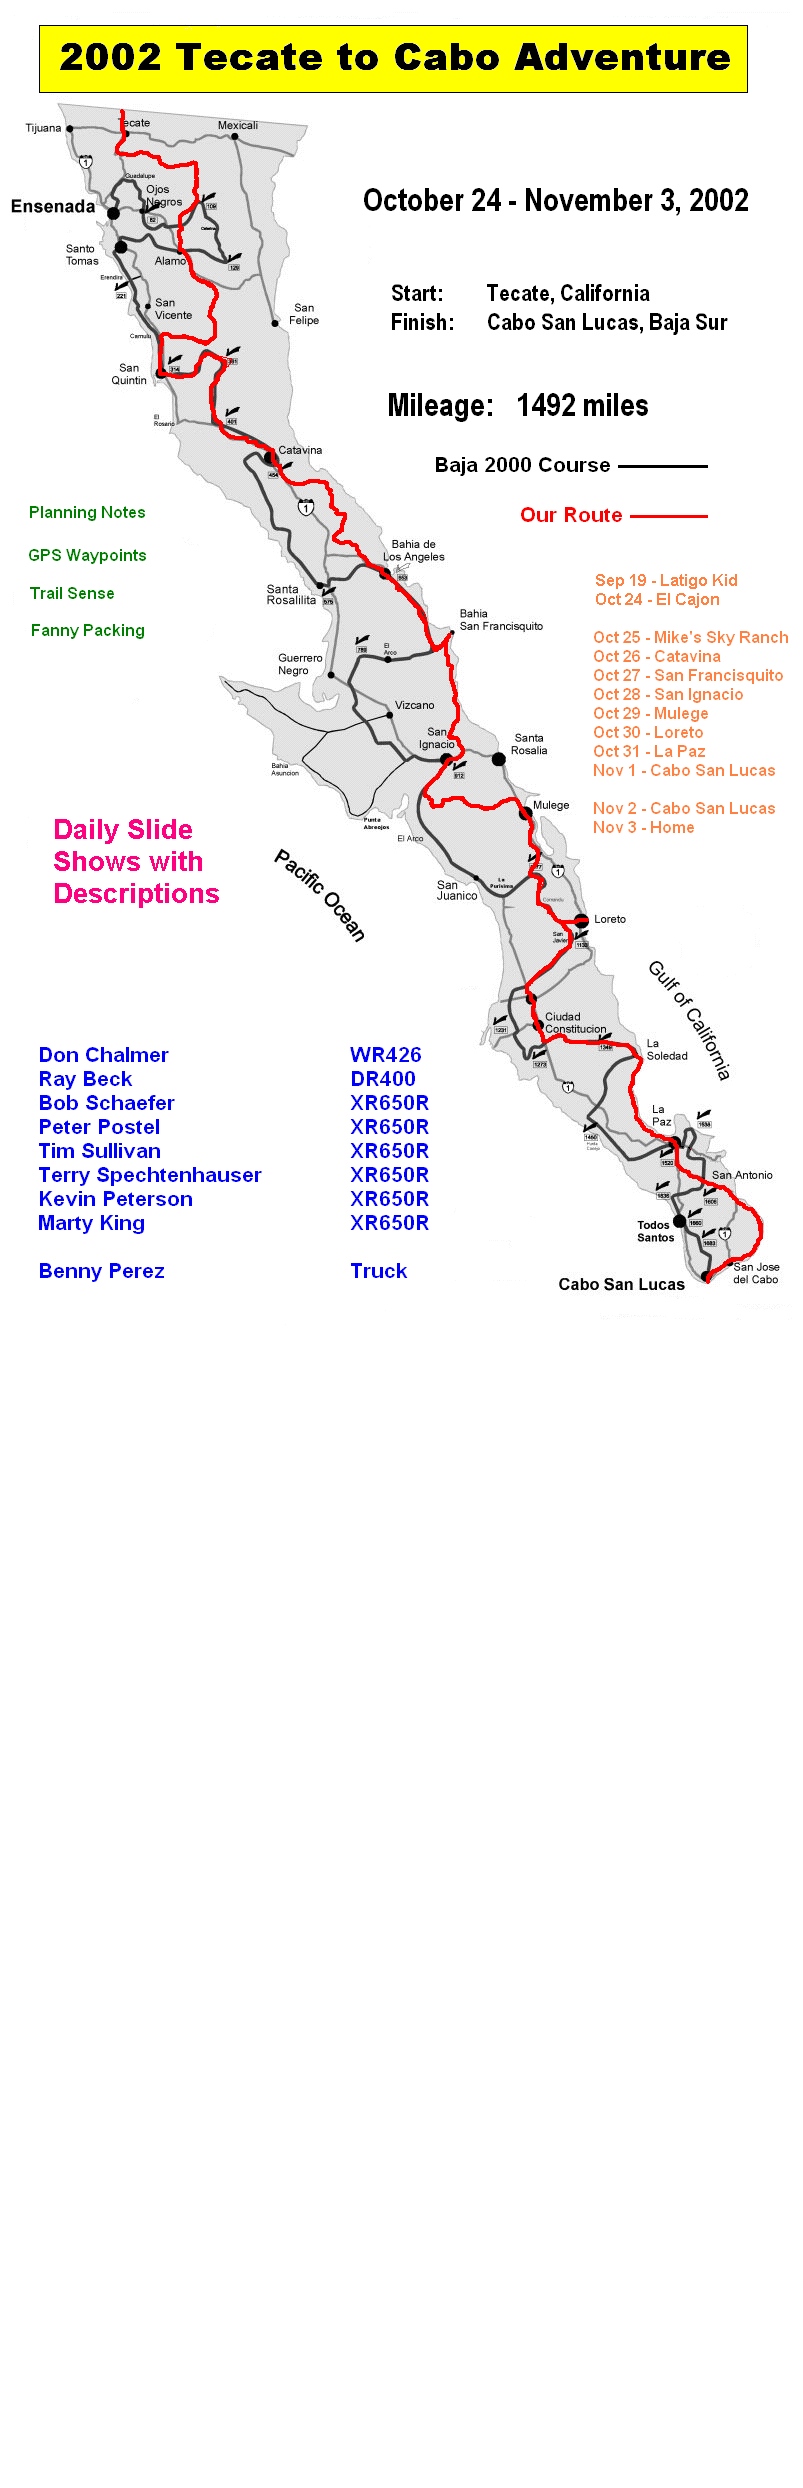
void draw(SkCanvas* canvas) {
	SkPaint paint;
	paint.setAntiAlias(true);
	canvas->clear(0xffffffff);
	canvas->drawImageRect(SkImages::DeferredFromEncodedData(SkData::MakeFromFileName("img1.png")), SkRect::MakeXYWH(11, 12, 781, 1313), SkSamplingOptions());
}
